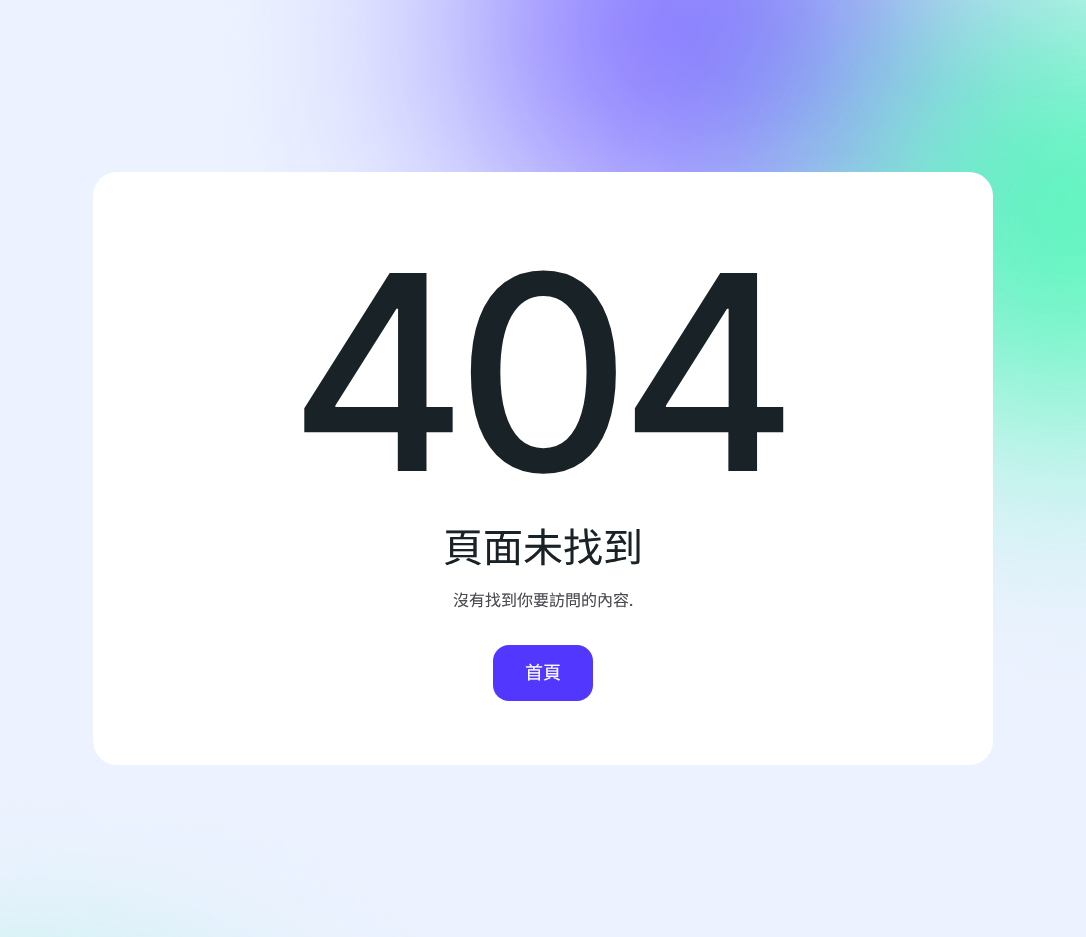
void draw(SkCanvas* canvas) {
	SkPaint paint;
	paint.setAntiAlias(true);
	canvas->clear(0xffecf2ff);
	canvas->drawImageRect(SkImages::DeferredFromEncodedData(SkData::MakeFromFileName("img1.png")), SkRect::MakeXYWH(0, 0, 1086, 937), SkSamplingOptions());
	paint.setColor(0xffffffff);
	canvas->drawRoundRect(SkRect::MakeXYWH(93, 172, 900, 593), 24, 24, paint);
	SkFont f1(fontMgr->matchFamilyStyle("Inter Tight", SkFontStyle(500, SkFontStyle::kNormal_Width, SkFontStyle::kUpright_Slant)), 272);
	f1.setSubpixel(true);
	paint.setColor(0xff192227);
	canvas->drawString("404", 295, 471, f1, paint);
	SkFont f2(fontMgr->matchFamilyStyle("Noto Sans CJK TC", SkFontStyle::Normal()), 40);
	f2.setSubpixel(true);
	canvas->drawString("頁面未找到", 443, 562, f2, paint);
	SkFont f3(fontMgr->matchFamilyStyle("Noto Sans CJK TC", SkFontStyle::Normal()), 16);
	f3.setSubpixel(true);
	paint.setColor(0xff4b4a51);
	canvas->drawString("沒有找到你要訪問的內容", 453, 606, f3, paint);
	SkFont f4(fontMgr->matchFamilyStyle("Inter Tight", SkFontStyle(500, SkFontStyle::kNormal_Width, SkFontStyle::kUpright_Slant)), 16);
	f4.setSubpixel(true);
	canvas->drawString(".", 629, 606, f4, paint);
	paint.setColor(0xff5137ff);
	canvas->drawRoundRect(SkRect::MakeXYWH(493, 645, 100, 56), 16, 16, paint);
	SkFont f5(fontMgr->matchFamilyStyle("Noto Sans CJK TC", SkFontStyle::Normal()), 18);
	f5.setSubpixel(true);
	paint.setColor(0xffffffff);
	canvas->drawString("首頁", 525, 679, f5, paint);
}
